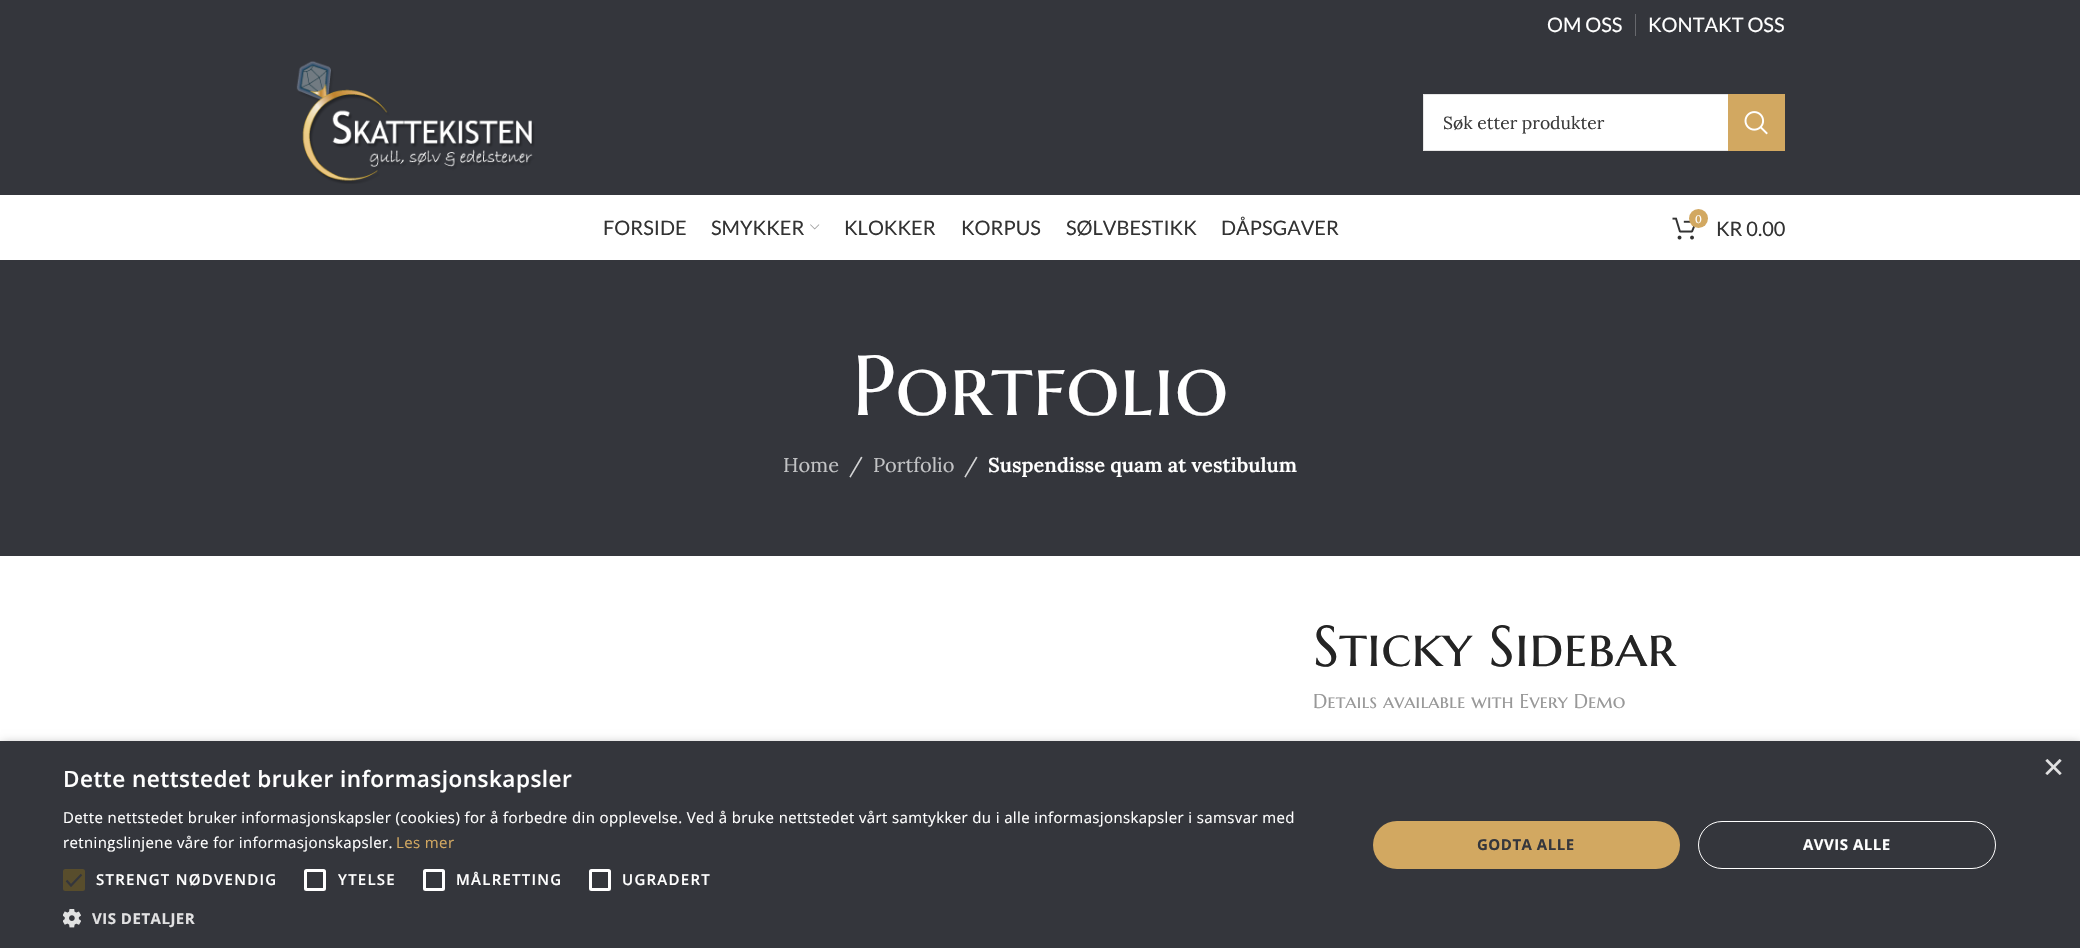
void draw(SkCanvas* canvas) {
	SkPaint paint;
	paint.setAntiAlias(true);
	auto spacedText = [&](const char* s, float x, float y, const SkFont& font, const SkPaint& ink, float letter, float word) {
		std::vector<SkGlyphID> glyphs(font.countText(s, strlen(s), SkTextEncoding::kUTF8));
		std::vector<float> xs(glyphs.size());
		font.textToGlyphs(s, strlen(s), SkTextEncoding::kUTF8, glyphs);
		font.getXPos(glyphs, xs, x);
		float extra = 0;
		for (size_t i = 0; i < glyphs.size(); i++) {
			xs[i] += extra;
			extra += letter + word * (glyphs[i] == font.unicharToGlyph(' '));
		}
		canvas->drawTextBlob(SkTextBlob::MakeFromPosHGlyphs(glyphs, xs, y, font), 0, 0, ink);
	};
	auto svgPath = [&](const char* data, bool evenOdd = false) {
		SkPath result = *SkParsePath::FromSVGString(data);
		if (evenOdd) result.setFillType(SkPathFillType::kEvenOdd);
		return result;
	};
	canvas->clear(0xffffffff);
	paint.setColor(0xff34363c);
	canvas->drawRect(SkRect::MakeXYWH(0, 0, 2080, 195), paint);
	SkFont f1(fontMgr->matchFamilyStyle("Lato", SkFontStyle::Normal()), 20);
	f1.setSubpixel(true);
	paint.setColor(0xffffffff);
	canvas->drawString("OM OSS", 1547, 32, f1, paint);
	paint.setColor(0xff67686d);
	canvas->drawRect(SkRect::MakeXYWH(1635, 14, 1, 22), paint);
	paint.setColor(0xffffffff);
	canvas->drawString("KONTAKT OSS", 1648, 32, f1, paint);
	canvas->drawImageRect(SkImages::DeferredFromEncodedData(SkData::MakeFromFileName("img1.png")), SkRect::MakeXYWH(296, 61, 239, 123), SkSamplingOptions());
	canvas->drawRect(SkRect::MakeXYWH(1424, 95, 304, 55), paint);
	paint.setStroke(true);
	paint.setStrokeWidth(1);
	paint.setColor(0xffe6e6e6);
	canvas->drawRect(SkRect::MakeXYWH(1423.5, 94.5, 361, 56), paint);
	SkFont f2(fontMgr->matchFamilyStyle("Lora", SkFontStyle::Normal()), 17.5);
	f2.setSubpixel(true);
	paint.setStroke(false);
	paint.setColor(0xff3a3a3a);
	canvas->drawString("Søk etter produkter", 1443, 129, f2, paint);
	paint.setColor(0xffd2a861);
	canvas->drawRect(SkRect::MakeXYWH(1728, 94, 57, 57), paint);
	canvas->drawImageRect(SkImages::DeferredFromEncodedData(SkData::MakeFromFileName("img2.png")), SkRect::MakeXYWH(1744, 111, 24, 24), SkSamplingOptions());
	paint.setColor(0xff333333);
	canvas->drawString("FORSIDE", 603, 235, f1, paint);
	canvas->drawString("SMYKKER", 711, 235, f1, paint);
	canvas->drawImageRect(SkImages::DeferredFromEncodedData(SkData::MakeFromFileName("img3.png")), SkRect::MakeXYWH(810, 224, 10, 6), SkSamplingOptions());
	canvas->drawString("KLOKKER", 844, 235, f1, paint);
	canvas->drawString("KORPUS", 961, 235, f1, paint);
	canvas->drawString("SØLVBESTIKK", 1066, 235, f1, paint);
	canvas->drawString("DÅPSGAVER", 1221, 235, f1, paint);
	canvas->drawImageRect(SkImages::DeferredFromEncodedData(SkData::MakeFromFileName("img4.png")), SkRect::MakeXYWH(1672, 217, 23, 23), SkSamplingOptions());
	paint.setColor(0xffd2a861);
	canvas->drawCircle(1698.5, 218.5, 9.5, paint);
	SkFont f3(fontMgr->matchFamilyStyle("Lora", SkFontStyle::Normal()), 11);
	f3.setSubpixel(true);
	paint.setColor(0xffffffff);
	canvas->drawString("0", 1695, 223, f3, paint);
	paint.setColor(0xff333333);
	canvas->drawString("KR 0.00", 1716, 236, f1, paint);
	paint.setColor(0xff34363c);
	canvas->drawRect(SkRect::MakeXYWH(0, 260, 2080, 296), paint);
	SkFont f4(fontMgr->matchFamilyStyle("Marcellus SC", SkFontStyle::Normal()), 85);
	f4.setSubpixel(true);
	paint.setColor(0xffffffff);
	canvas->drawString("Portfolio", 852, 415, f4, paint);
	SkFont f5(fontMgr->matchFamilyStyle("Lora", SkFontStyle::Normal()), 20);
	f5.setSubpixel(true);
	paint.setColor(0xffc2c3c5);
	canvas->drawString("Home", 783, 472, f5, paint);
	paint.setColor(0xffd6d7d8);
	canvas->drawString("/", 849, 472, f5, paint);
	paint.setColor(0xffc2c3c5);
	canvas->drawString("Portfolio", 873, 472, f5, paint);
	paint.setColor(0xffd6d7d8);
	canvas->drawString("/", 964, 472, f5, paint);
	SkFont f6(fontMgr->matchFamilyStyle("Lora", SkFontStyle(600, SkFontStyle::kNormal_Width, SkFontStyle::kUpright_Slant)), 20);
	f6.setSubpixel(true);
	paint.setColor(0xffffffff);
	canvas->drawString("Suspendisse quam at vestibulum", 988, 472, f6, paint);
	SkFont f7(fontMgr->matchFamilyStyle("Marcellus SC", SkFontStyle::Normal()), 57.5);
	f7.setSubpixel(true);
	paint.setColor(0xff242424);
	canvas->drawString("Sticky Sidebar", 1313, 666, f7, paint);
	SkFont f8(fontMgr->matchFamilyStyle("Marcellus SC", SkFontStyle::Normal()), 20);
	f8.setSubpixel(true);
	paint.setColor(0xff989898);
	canvas->drawString("Details available with Every Demo", 1313, 708, f8, paint);
	paint.setColor(0x59000000);
	paint.setMaskFilter(SkMaskFilter::MakeBlur(kNormal_SkBlurStyle, 5));
	canvas->drawRect(SkRect::MakeXYWH(1, 744, 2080, 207), paint);
	paint.setMaskFilter(nullptr);
	paint.setColor(0xff34363c);
	canvas->drawRect(SkRect::MakeXYWH(0, 741, 2080, 207), paint);
	SkFont f9(fontMgr->matchFamilyStyle("Liberation Sans", SkFontStyle::Normal()), 36);
	f9.setSubpixel(true);
	paint.setColor(0xffe1e1e2);
	canvas->drawString("×", 2043, 779, f9, paint);
	SkFont f10(fontMgr->matchFamilyStyle("Open Sans", SkFontStyle(600, SkFontStyle::kNormal_Width, SkFontStyle::kUpright_Slant)), 22.5);
	f10.setSubpixel(true);
	paint.setColor(0xffffffff);
	spacedText("Dette nettstedet bruker informasjonskapsler", 63, 787, f10, paint, 0.5, 0);
	SkFont f11(fontMgr->matchFamilyStyle("Open Sans", SkFontStyle::Normal()), 15);
	f11.setSubpixel(true);
	spacedText("Dette nettstedet bruker informasjonskapsler (cookies) for å forbedre din opplevelse. Ved å bruke nettstedet vårt samtykker du i alle informasjonskapsler i samsvar med", 63, 823, f11, paint, 0.38, 0);
	spacedText("retningslinjene våre for informasjonskapsler.", 63, 848, f11, paint, 0.38, 0);
	paint.setColor(0xffd2a861);
	spacedText("Les mer", 396, 848, f11, paint, 0.38, 0);
	paint.setColor(0xff584d2c);
	canvas->drawRoundRect(SkRect::MakeXYWH(63, 869, 22, 22), 2.5, 2.5, paint);
	paint.setStroke(true);
	paint.setStrokeWidth(2.3);
	paint.setColor(0xff34363c);
	canvas->drawPath(svgPath("M66.5 880.5L71 885.5L81.5 874.5"), paint);
	SkFont f12(fontMgr->matchFamilyStyle("Open Sans", SkFontStyle(600, SkFontStyle::kNormal_Width, SkFontStyle::kUpright_Slant)), 15);
	f12.setSubpixel(true);
	paint.setStroke(false);
	paint.setColor(0xffffffff);
	spacedText("STRENGT NØDVENDIG", 96, 885, f12, paint, 1.25, 0);
	paint.setStroke(true);
	paint.setStrokeWidth(3);
	canvas->drawRoundRect(SkRect::MakeXYWH(305.5, 870.5, 19, 19), 1, 1, paint);
	paint.setStroke(false);
	spacedText("YTELSE", 338, 885, f12, paint, 1.25, 0);
	paint.setStroke(true);
	canvas->drawRoundRect(SkRect::MakeXYWH(424.5, 870.5, 19, 19), 1, 1, paint);
	paint.setStroke(false);
	spacedText("MÅLRETTING", 456, 885, f12, paint, 1.25, 0);
	paint.setStroke(true);
	canvas->drawRoundRect(SkRect::MakeXYWH(590.5, 870.5, 19, 19), 1, 1, paint);
	paint.setStroke(false);
	spacedText("UGRADERT", 622, 885, f12, paint, 1.25, 0);
	canvas->drawImageRect(SkImages::DeferredFromEncodedData(SkData::MakeFromFileName("img5.png")), SkRect::MakeXYWH(63, 909, 18, 19), SkSamplingOptions());
	SkFont f13(fontMgr->matchFamilyStyle("Open Sans", SkFontStyle::Bold()), 15);
	f13.setSubpixel(true);
	paint.setColor(0xffe1e1e2);
	spacedText("VIS DETALJER", 92, 924, f13, paint, 0.5, 0);
	paint.setColor(0xffd2a861);
	canvas->drawRoundRect(SkRect::MakeXYWH(1373, 821, 307, 48), 24, 24, paint);
	paint.setColor(0xff34363c);
	spacedText("GODTA ALLE", 1477, 850, f13, paint, 0.5, 0);
	paint.setStroke(true);
	paint.setStrokeWidth(1);
	paint.setColor(0xffffffff);
	canvas->drawRoundRect(SkRect::MakeXYWH(1698.5, 821.5, 297, 47), 23.5, 23.5, paint);
	paint.setStroke(false);
	spacedText("AVVIS ALLE", 1803, 850, f13, paint, 0.5, 0);
}
